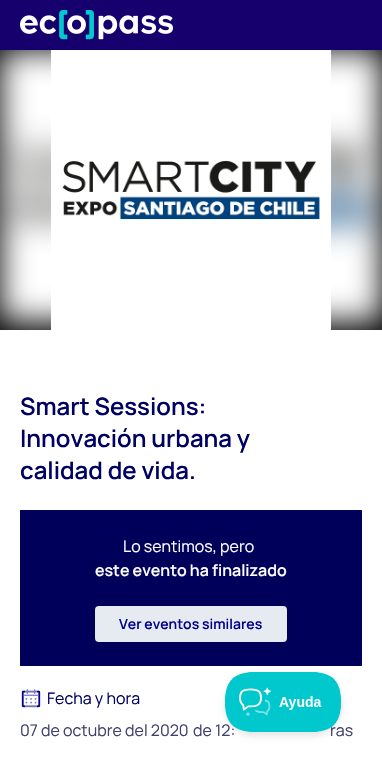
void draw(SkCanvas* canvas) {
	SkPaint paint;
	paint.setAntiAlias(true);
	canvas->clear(0xffffffff);
	paint.setColor(0xff16006e);
	canvas->drawRect(SkRect::MakeXYWH(0, 0, 382, 50), paint);
	canvas->drawImageRect(SkImages::DeferredFromEncodedData(SkData::MakeFromFileName("img1.png")), SkRect::MakeXYWH(20, 10, 153, 30), SkSamplingOptions());
	paint.setColor(0xff000000);
	canvas->drawRect(SkRect::MakeXYWH(0, 50, 382, 280), paint);
	canvas->drawImageRect(SkImages::DeferredFromEncodedData(SkData::MakeFromFileName("img2.png")), SkRect::MakeXYWH(0, 50, 382, 280), SkSamplingOptions());
	canvas->drawImageRect(SkImages::DeferredFromEncodedData(SkData::MakeFromFileName("img3.png")), SkRect::MakeXYWH(51, 50, 280, 280), SkSamplingOptions());
	SkFont f1(fontMgr->matchFamilyStyle("Manrope", SkFontStyle(600, SkFontStyle::kNormal_Width, SkFontStyle::kUpright_Slant)), 24);
	f1.setSubpixel(true);
	paint.setColor(0xff000063);
	canvas->drawString("Smart Sessions:", 20, 415, f1, paint);
	canvas->drawString("Innovación urbana y", 20, 447, f1, paint);
	canvas->drawString("calidad de vida.", 20, 479, f1, paint);
	paint.setColor(0xff00005a);
	canvas->drawRect(SkRect::MakeXYWH(20, 510, 342, 156), paint);
	SkFont f2(fontMgr->matchFamilyStyle("Manrope", SkFontStyle::Normal()), 16);
	f2.setSubpixel(true);
	paint.setColor(0xffffffff);
	canvas->drawString("Lo sentimos, pero", 123, 552, f2, paint);
	SkFont f3(fontMgr->matchFamilyStyle("Manrope", SkFontStyle(600, SkFontStyle::kNormal_Width, SkFontStyle::kUpright_Slant)), 16);
	f3.setSubpixel(true);
	canvas->drawString("este evento ha finalizado", 95, 576, f3, paint);
	paint.setColor(0xffe6eaf1);
	canvas->drawRoundRect(SkRect::MakeXYWH(95, 606, 192, 36), 4, 4, paint);
	SkFont f4(fontMgr->matchFamilyStyle("Manrope", SkFontStyle(600, SkFontStyle::kNormal_Width, SkFontStyle::kUpright_Slant)), 14);
	f4.setSubpixel(true);
	paint.setColor(0xff00008c);
	canvas->drawString("Ver eventos similares", 119, 629, f4, paint);
	canvas->drawImageRect(SkImages::DeferredFromEncodedData(SkData::MakeFromFileName("img4.png")), SkRect::MakeXYWH(21, 689, 20, 19), SkSamplingOptions());
	paint.setColor(0xff000063);
	canvas->drawString("Fecha y hora", 47, 704, f2, paint);
	paint.setColor(0xff3e406d);
	canvas->drawString("07 de octubre del 2020", 20, 736, f2, paint);
	canvas->drawString("de 12:", 193, 736, f2, paint);
	canvas->drawString("ras", 330, 736, f2, paint);
	paint.setColor(0x1a000000);
	paint.setMaskFilter(SkMaskFilter::MakeBlur(kNormal_SkBlurStyle, 3.5));
	canvas->drawRoundRect(SkRect::MakeXYWH(225, 676, 117, 60), 30, 30, paint);
	paint.setMaskFilter(nullptr);
	canvas->drawImageRect(SkImages::DeferredFromEncodedData(SkData::MakeFromFileName("img5.png")), SkRect::MakeXYWH(225, 672, 116, 60), SkSamplingOptions());
}
